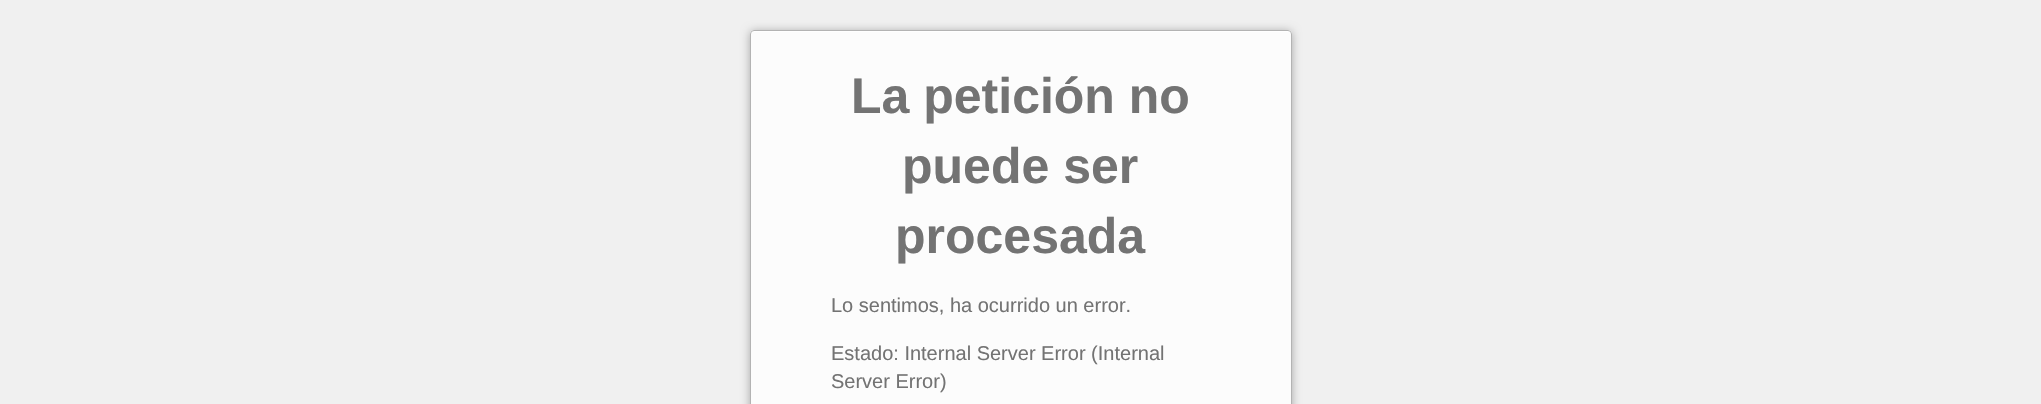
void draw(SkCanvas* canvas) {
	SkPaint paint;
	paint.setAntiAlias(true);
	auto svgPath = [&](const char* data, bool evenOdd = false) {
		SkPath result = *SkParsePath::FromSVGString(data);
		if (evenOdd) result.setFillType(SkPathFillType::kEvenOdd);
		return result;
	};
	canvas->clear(0xfff0f0f0);
	paint.setColor(0xffa7a7a7);
	paint.setMaskFilter(SkMaskFilter::MakeBlur(kNormal_SkBlurStyle, 5));
	canvas->drawRoundRect(SkRect::MakeXYWH(750, 31, 542, 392), 4, 4, paint);
	paint.setMaskFilter(nullptr);
	paint.setColor(0xfffcfcfc);
	canvas->drawRoundRect(SkRect::MakeXYWH(750, 30, 542, 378), 4, 4, paint);
	paint.setColor(0xffffffff);
	canvas->drawPath(svgPath("M754 32H1288C1290 32 1291 33 1291 35V34C1291 32 1290 31 1288 31H754C752 31 751 32 751 34V35C751 33 752 32 754 32Z"), paint);
	paint.setStroke(true);
	paint.setStrokeWidth(1);
	paint.setColor(0xffb3b3b3);
	canvas->drawRoundRect(SkRect::MakeXYWH(750.5, 30.5, 541, 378), 3.5, 3.5, paint);
	SkFont f1(fontMgr->matchFamilyStyle("Liberation Sans", SkFontStyle::Bold()), 50);
	f1.setSubpixel(true);
	paint.setStroke(false);
	paint.setColor(0xff737373);
	canvas->drawString("La petición no", 851, 113, f1, paint);
	canvas->drawString("puede ser", 902, 183, f1, paint);
	canvas->drawString("procesada", 895, 253, f1, paint);
	SkFont f2(fontMgr->matchFamilyStyle("Liberation Sans", SkFontStyle::Normal()), 20);
	f2.setSubpixel(true);
	canvas->drawString("Lo sentimos, ha ocurrido un error.", 831, 312, f2, paint);
	canvas->drawString("Estado: Internal Server Error (Internal", 831, 360, f2, paint);
	canvas->drawString("Server Error)", 831, 388, f2, paint);
}
